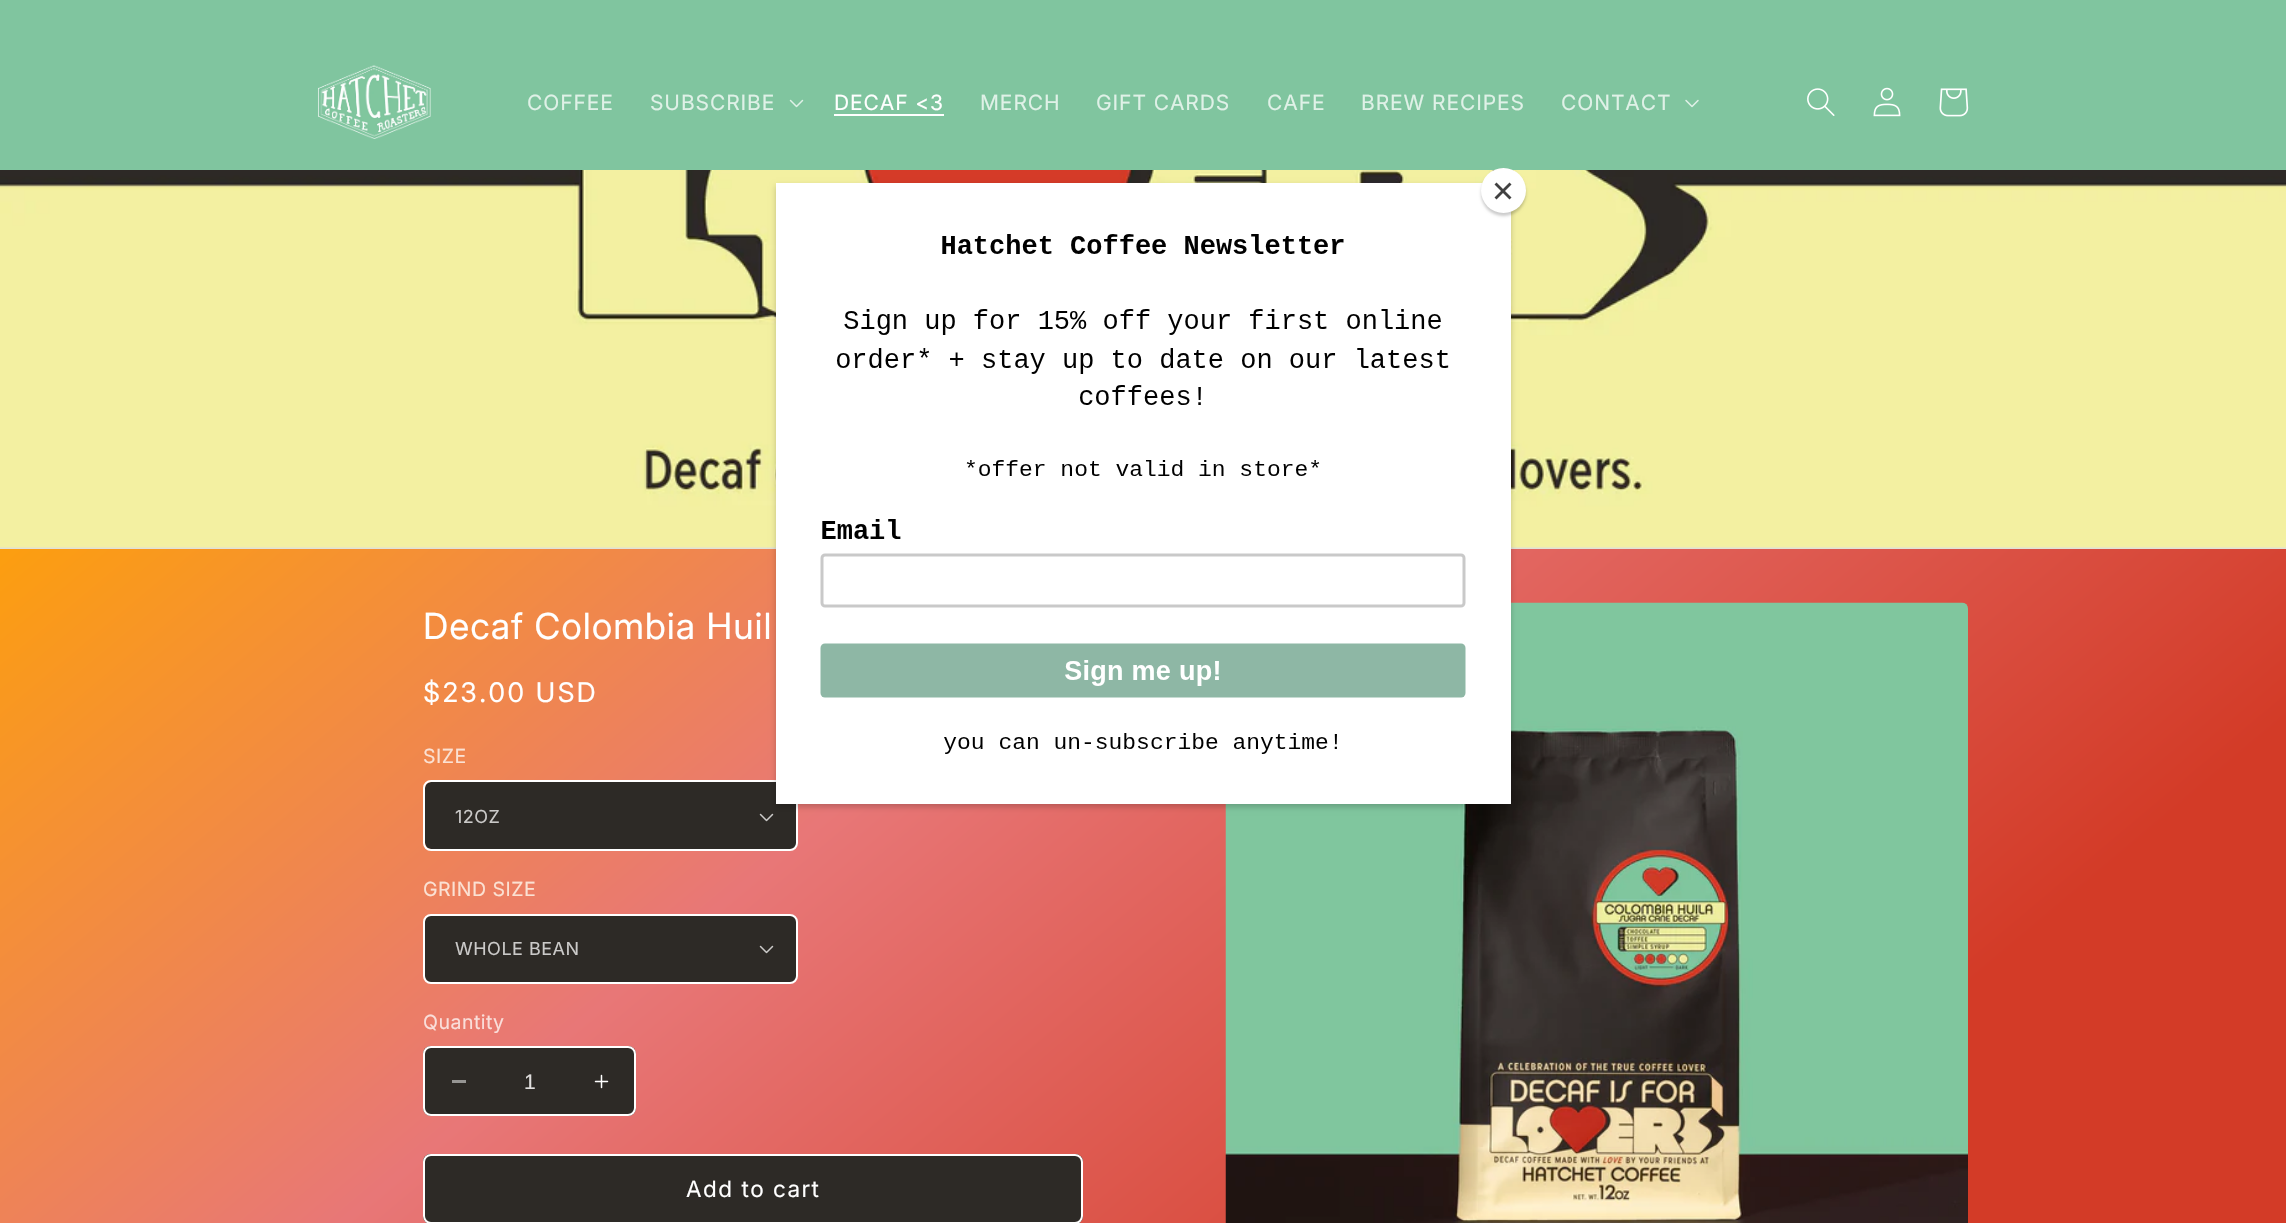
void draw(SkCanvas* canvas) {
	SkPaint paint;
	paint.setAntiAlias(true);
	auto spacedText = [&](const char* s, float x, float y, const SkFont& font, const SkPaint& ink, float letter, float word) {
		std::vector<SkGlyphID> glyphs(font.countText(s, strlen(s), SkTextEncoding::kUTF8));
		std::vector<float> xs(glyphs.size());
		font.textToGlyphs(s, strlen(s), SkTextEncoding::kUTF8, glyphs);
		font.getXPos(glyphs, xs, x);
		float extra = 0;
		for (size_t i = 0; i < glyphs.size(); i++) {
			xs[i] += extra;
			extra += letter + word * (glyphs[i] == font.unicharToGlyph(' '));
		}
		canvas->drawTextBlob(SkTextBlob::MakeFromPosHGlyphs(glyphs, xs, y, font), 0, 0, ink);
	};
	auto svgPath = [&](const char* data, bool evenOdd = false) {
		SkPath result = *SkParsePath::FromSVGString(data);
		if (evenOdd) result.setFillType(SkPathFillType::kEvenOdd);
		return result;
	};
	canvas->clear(0xffffffff);
	paint.setColor(0xff80c59f);
	canvas->drawRect(SkRect::MakeXYWH(0, 0, 2286, 170), paint);
	canvas->drawImageRect(SkImages::DeferredFromEncodedData(SkData::MakeFromFileName("img1.png")), SkRect::MakeXYWH(318, 65, 113, 74), SkSamplingOptions());
	SkFont f1(fontMgr->matchFamilyStyle("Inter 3", SkFontStyle::Normal()), 21);
	f1.setSubpixel(true);
	paint.setColor(0xffdff1e7);
	spacedText("COFFEE", 527, 110, f1, paint, 0.9, 0);
	spacedText("SUBSCRIBE", 650, 110, f1, paint, 0.9, 0);
	canvas->drawImageRect(SkImages::DeferredFromEncodedData(SkData::MakeFromFileName("img2.png")), SkRect::MakeXYWH(789, 99, 15, 9), SkSamplingOptions());
	paint.setColor(0xffffffff);
	spacedText("DECAF <3", 834, 110, f1, paint, 0.9, 0);
	canvas->drawRect(SkRect::MakeXYWH(834, 114, 110, 2), paint);
	paint.setColor(0xffdff1e7);
	spacedText("MERCH", 980, 110, f1, paint, 0.9, 0);
	spacedText("GIFT CARDS", 1096, 110, f1, paint, 0.9, 0);
	spacedText("CAFE", 1267, 110, f1, paint, 0.9, 0);
	spacedText("BREW RECIPES", 1361, 110, f1, paint, 0.9, 0);
	spacedText("CONTACT", 1561, 110, f1, paint, 0.9, 0);
	canvas->drawImageRect(SkImages::DeferredFromEncodedData(SkData::MakeFromFileName("img3.png")), SkRect::MakeXYWH(1685, 99, 14, 9), SkSamplingOptions());
	canvas->drawImageRect(SkImages::DeferredFromEncodedData(SkData::MakeFromFileName("img4.png")), SkRect::MakeXYWH(1807, 88, 28, 28), SkSamplingOptions());
	canvas->drawImageRect(SkImages::DeferredFromEncodedData(SkData::MakeFromFileName("img5.png")), SkRect::MakeXYWH(1873, 87, 28, 30), SkSamplingOptions());
	canvas->drawImageRect(SkImages::DeferredFromEncodedData(SkData::MakeFromFileName("img6.png")), SkRect::MakeXYWH(1939, 88, 30, 29), SkSamplingOptions());
	paint.setColor(0xffdfdfde);
	canvas->drawRect(SkRect::MakeXYWH(0, 544, 2286, 5), paint);
	canvas->drawImageRect(SkImages::DeferredFromEncodedData(SkData::MakeFromFileName("img8.png")), SkRect::MakeXYWH(0, 170, 2286, 379), SkSamplingOptions());
	{
		const SkColor colors[] = {0xffd33b27, 0xffe87777, 0xffffa400};
		const float stops[] = {0.16, 0.52, 0.87};
		const SkPoint ends[] = {{1917, 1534}, {369, -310}};
		paint.setShader(SkGradientShader::MakeLinear(ends, colors, stops, 3, SkTileMode::kClamp));
		paint.setAlpha(255);
	}
	canvas->drawRect(SkRect::MakeXYWH(0, 549, 2286, 674), paint);
	paint.setShader(nullptr);
	paint.setColor(0xff2d2a26);
	canvas->drawRoundRect(SkRect::MakeXYWH(425, 782, 372, 67), 6, 6, paint);
	canvas->drawImageRect(SkImages::DeferredFromEncodedData(SkData::MakeFromFileName("img9.png")), SkRect::MakeXYWH(759, 813, 15, 9), SkSamplingOptions());
	paint.setStroke(true);
	paint.setStrokeWidth(2);
	paint.setColor(0xffffffff);
	canvas->drawRoundRect(SkRect::MakeXYWH(424, 781, 373, 69), 7, 7, paint);
	canvas->drawImageRect(SkImages::DeferredFromEncodedData(SkData::MakeFromFileName("img11.png")), SkRect::MakeXYWH(1225, 602, 743, 621), SkSamplingOptions());
	paint.setStroke(false);
	paint.setColor(0x33000000);
	paint.setMaskFilter(SkMaskFilter::MakeBlur(kNormal_SkBlurStyle, 3));
	canvas->drawRect(SkRect::MakeXYWH(776, 186, 735, 621), paint);
	paint.setMaskFilter(nullptr);
	canvas->drawImageRect(SkImages::DeferredFromEncodedData(SkData::MakeFromFileName("img7.png")), SkRect::MakeXYWH(776, 183, 735, 621), SkSamplingOptions());
	paint.setMaskFilter(SkMaskFilter::MakeBlur(kNormal_SkBlurStyle, 1.5));
	canvas->drawRoundRect(SkRect::MakeXYWH(1481, 171, 45, 45), 22.5, 22.5, paint);
	paint.setMaskFilter(nullptr);
	paint.setColor(0xffffffff);
	canvas->drawCircle(1503.5, 190.5, 22.5, paint);
	paint.setColor(0xff414141);
	canvas->drawPath(svgPath("M1509.5 182.5L1511.5 184.5L1496.5 199.5L1494.5 197.5Z"), paint);
	canvas->drawPath(svgPath("M1494.5 184.5L1496.5 182.5L1511.5 197.5L1509.5 199.5Z"), paint);
	SkFont f2(fontMgr->matchFamilyStyle("Inter", SkFontStyle::Normal()), 36);
	f2.setSubpixel(true);
	paint.setColor(0xffffffff);
	spacedText("Decaf Colombia Huil", 423, 639, f2, paint, 0.9, 0);
	SkFont f3(fontMgr->matchFamilyStyle("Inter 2", SkFontStyle::Normal()), 27);
	f3.setSubpixel(true);
	spacedText("$23.00 USD", 423, 702, f3, paint, 2, 0);
	SkFont f4(fontMgr->matchFamilyStyle("Inter 3", SkFontStyle::Normal()), 19.5);
	f4.setSubpixel(true);
	paint.setColor(0xfffbe1d3);
	spacedText("SIZE", 423, 763, f4, paint, 0.5, 0);
	SkFont f5(fontMgr->matchFamilyStyle("Inter 3", SkFontStyle::Normal()), 18);
	f5.setSubpixel(true);
	paint.setColor(0xffcbcac9);
	spacedText("12OZ", 455, 823, f5, paint, 0.5, 0);
	paint.setColor(0xfffbe1d3);
	spacedText("GRIND SIZE", 423, 896, f4, paint, 0.5, 0);
	paint.setColor(0xff2d2a26);
	canvas->drawRoundRect(SkRect::MakeXYWH(425, 915, 372, 68), 6, 6, paint);
	canvas->drawImageRect(SkImages::DeferredFromEncodedData(SkData::MakeFromFileName("img9.png")), SkRect::MakeXYWH(759, 945, 15, 9), SkSamplingOptions());
	paint.setStroke(true);
	paint.setColor(0xffffffff);
	canvas->drawRoundRect(SkRect::MakeXYWH(424, 915, 373, 68), 7, 7, paint);
	paint.setStroke(false);
	paint.setColor(0xffcbcac9);
	spacedText("WHOLE BEAN", 455, 955, f5, paint, 0.5, 0);
	paint.setColor(0xfffadeda);
	spacedText("Quantity", 423, 1029, f4, paint, 0.5, 0);
	paint.setColor(0xff2d2a26);
	canvas->drawRoundRect(SkRect::MakeXYWH(423, 1046, 213, 70), 8, 8, paint);
	paint.setColor(0xff969593);
	canvas->drawRect(SkRect::MakeXYWH(452, 1080, 14, 3), paint);
	canvas->drawImageRect(SkImages::DeferredFromEncodedData(SkData::MakeFromFileName("img10.png")), SkRect::MakeXYWH(594, 1074, 15, 15), SkSamplingOptions());
	paint.setStroke(true);
	paint.setColor(0xffffffff);
	canvas->drawRoundRect(SkRect::MakeXYWH(424, 1047, 211, 68), 7, 7, paint);
	SkFont f6(fontMgr->matchFamilyStyle("Liberation Sans", SkFontStyle::Normal()), 21);
	f6.setSubpixel(true);
	paint.setStroke(false);
	paint.setColor(0xffe0dfde);
	canvas->drawString("1", 524, 1089, f6, paint);
	paint.setColor(0xff2d2a26);
	canvas->drawRoundRect(SkRect::MakeXYWH(423, 1154, 660, 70), 8, 8, paint);
	paint.setStroke(true);
	canvas->drawRoundRect(SkRect::MakeXYWH(424, 1155, 658, 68), 7, 7, paint);
	paint.setColor(0xffffffff);
	canvas->drawRoundRect(SkRect::MakeXYWH(424, 1155, 658, 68), 7, 7, paint);
	SkFont f7(fontMgr->matchFamilyStyle("Inter 3", SkFontStyle::Normal()), 22.5);
	f7.setSubpixel(true);
	paint.setStroke(false);
	spacedText("Add to cart", 686, 1197, f7, paint, 1.5, 0);
}
